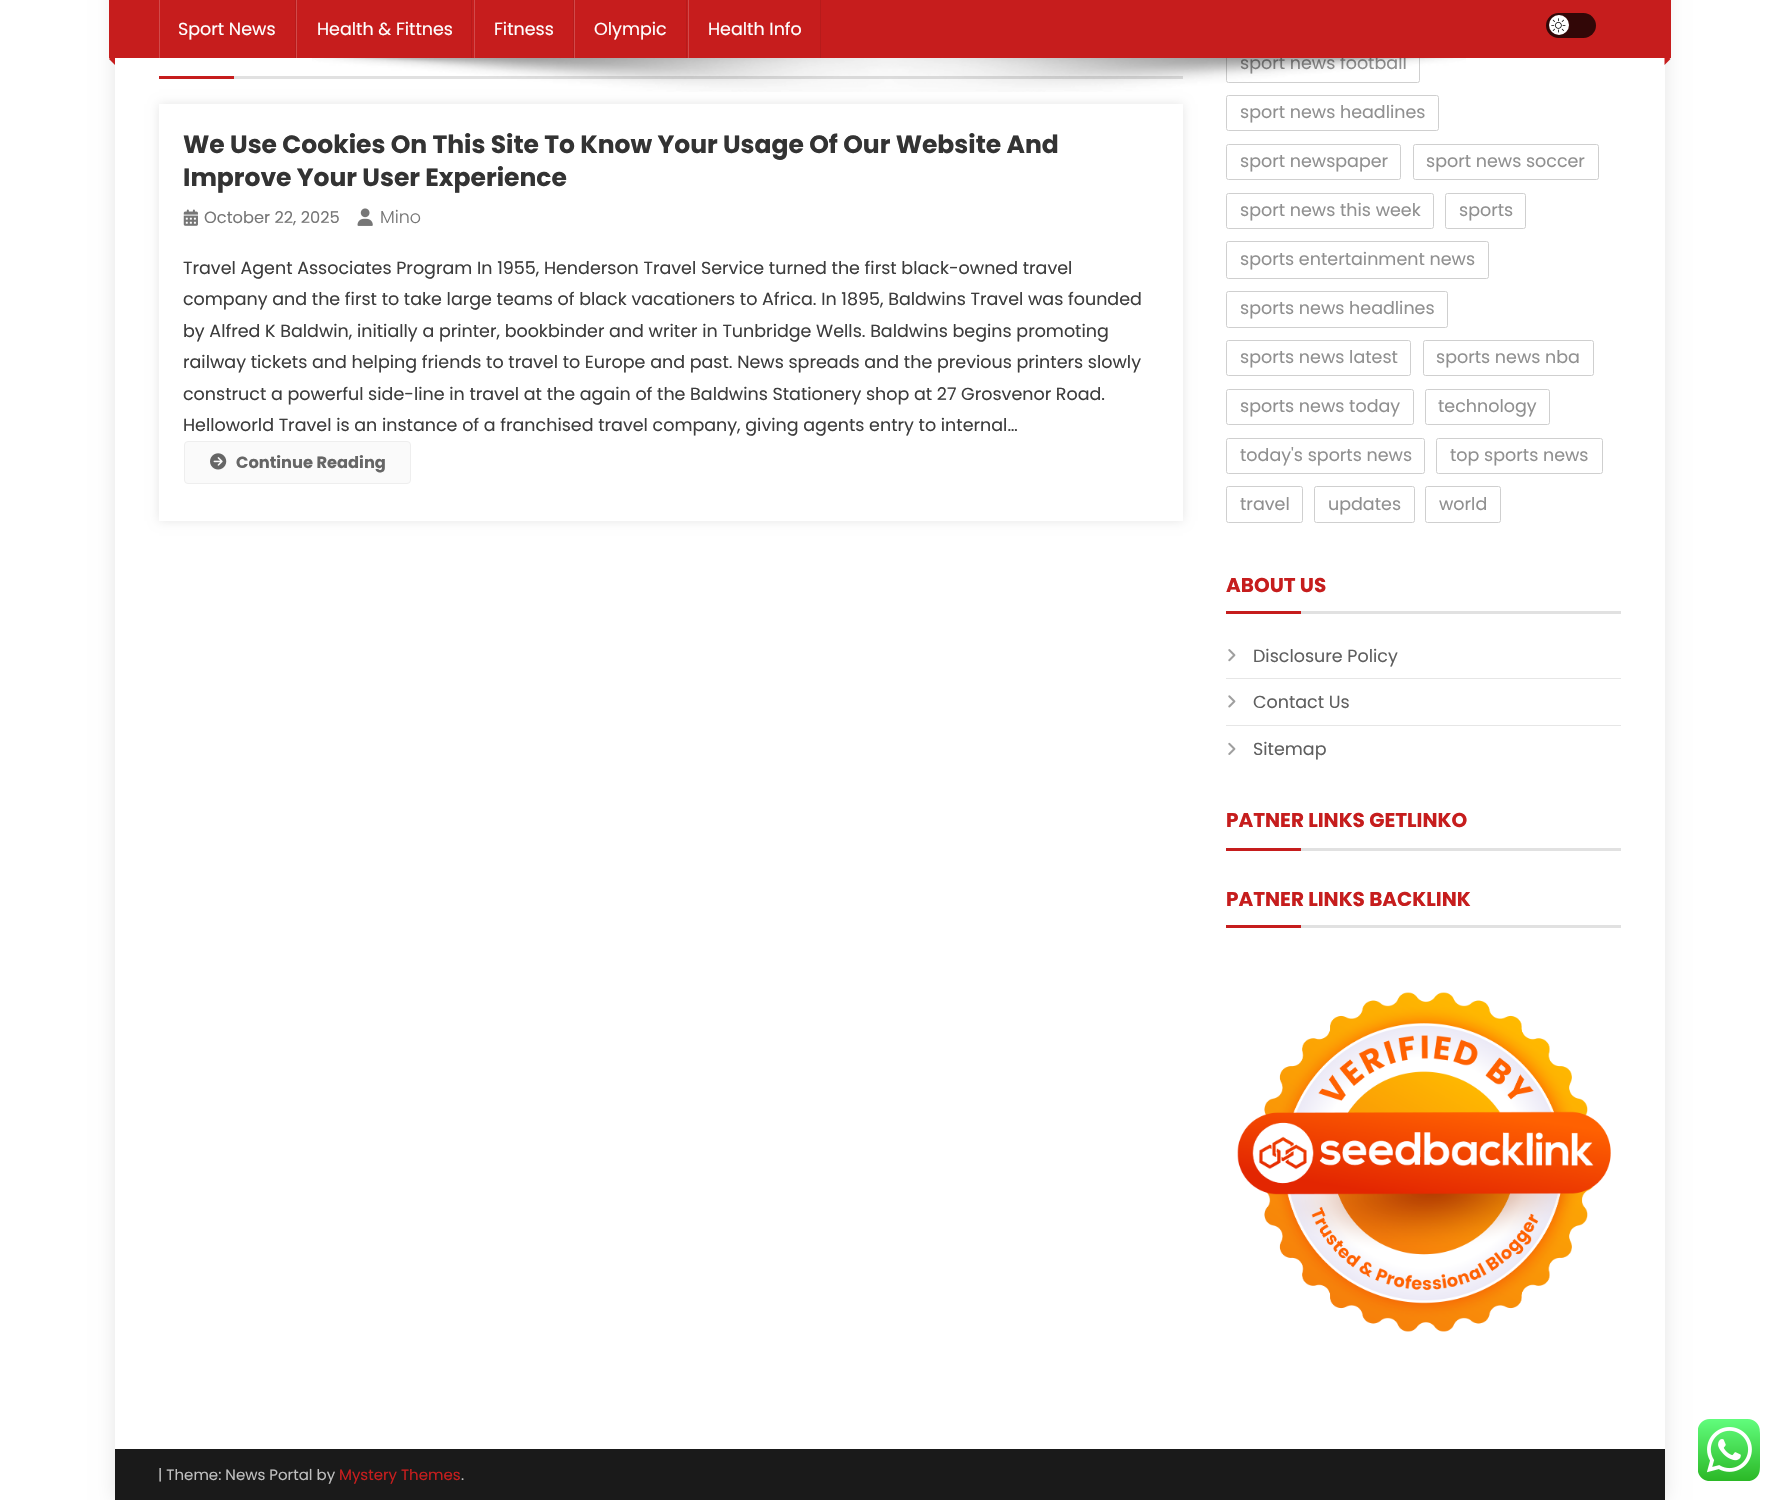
void draw(SkCanvas* canvas) {
	SkPaint paint;
	paint.setAntiAlias(true);
	auto svgPath = [&](const char* data, bool evenOdd = false) {
		SkPath result = *SkParsePath::FromSVGString(data);
		if (evenOdd) result.setFillType(SkPathFillType::kEvenOdd);
		return result;
	};
	canvas->clear(0xffffffff);
	canvas->save();
	canvas->clipPath(svgPath("M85 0H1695V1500H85ZM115-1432H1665V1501H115Z", true), true);
	paint.setColor(0x1a000000);
	paint.setMaskFilter(SkMaskFilter::MakeBlur(kNormal_SkBlurStyle, 9.5));
	canvas->drawRect(SkRect::MakeXYWH(115, -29, 1550, 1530), paint);
	paint.setMaskFilter(nullptr);
	canvas->restore();
	paint.setStroke(true);
	paint.setStrokeWidth(1);
	paint.setColor(0xffcfcfcf);
	canvas->drawRoundRect(SkRect::MakeXYWH(1226.5, 46.5, 193, 36), 2, 2, paint);
	SkFont f1(fontMgr->matchFamilyStyle("Poppins", SkFontStyle::Normal()), 17.5);
	f1.setSubpixel(true);
	paint.setStroke(false);
	paint.setColor(0xff909090);
	canvas->drawString("sport news football", 1240, 69, f1, paint);
	paint.setColor(0xffc61d1d);
	canvas->drawRect(SkRect::MakeXYWH(115, 0, 1550, 58), paint);
	canvas->drawPath(svgPath("M115 52.5V65L109 59Z"), paint);
	canvas->drawRect(SkRect::MakeXYWH(109, 0, 6, 58), paint);
	paint.setColor(0xffb61b1b);
	canvas->drawRect(SkRect::MakeXYWH(295, 0, 1, 58), paint);
	paint.setColor(0xffd14a4a);
	canvas->drawRect(SkRect::MakeXYWH(159, 0, 1, 58), paint);
	paint.setColor(0xffffffff);
	canvas->drawString("Sport News", 178, 35, f1, paint);
	paint.setColor(0xffb61b1b);
	canvas->drawRect(SkRect::MakeXYWH(471, 0, 1, 58), paint);
	paint.setColor(0xffd14a4a);
	canvas->drawRect(SkRect::MakeXYWH(296, 0, 1, 58), paint);
	paint.setColor(0xffffffff);
	canvas->drawString("Health & Fittnes", 317, 35, f1, paint);
	paint.setColor(0xffb61b1b);
	canvas->drawRect(SkRect::MakeXYWH(573, 0, 1, 58), paint);
	paint.setColor(0xffd14a4a);
	canvas->drawRect(SkRect::MakeXYWH(474, 0, 1, 58), paint);
	paint.setColor(0xffffffff);
	canvas->drawString("Fitness", 494, 35, f1, paint);
	paint.setColor(0xffb61b1b);
	canvas->drawRect(SkRect::MakeXYWH(686, 0, 1, 58), paint);
	paint.setColor(0xffd14a4a);
	canvas->drawRect(SkRect::MakeXYWH(574, 0, 1, 58), paint);
	paint.setColor(0xffffffff);
	canvas->drawString("Olympic", 594, 35, f1, paint);
	paint.setColor(0xffb61b1b);
	canvas->drawRect(SkRect::MakeXYWH(820, 0, 1, 58), paint);
	paint.setColor(0xffd14a4a);
	canvas->drawRect(SkRect::MakeXYWH(688, 0, 1, 58), paint);
	paint.setColor(0xffffffff);
	canvas->drawString("Health Info", 708, 35, f1, paint);
	paint.setColor(0xff320707);
	canvas->drawRoundRect(SkRect::MakeXYWH(1546, 13, 50, 25), 12.5, 12.5, paint);
	paint.setColor(0xffffffff);
	canvas->drawCircle(1559, 25, 10, paint);
	canvas->drawImageRect(SkImages::DeferredFromEncodedData(SkData::MakeFromFileName("img1.png")), SkRect::MakeXYWH(1551, 18, 15, 15), SkSamplingOptions());
	paint.setColor(0xffe1e1e1);
	canvas->drawRect(SkRect::MakeXYWH(234, 76, 949, 3), paint);
	canvas->save();
	canvas->clipPath(svgPath("M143 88H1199V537H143ZM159 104H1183V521H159Z", true), true);
	paint.setColor(0x1a000000);
	paint.setMaskFilter(SkMaskFilter::MakeBlur(kNormal_SkBlurStyle, 5));
	canvas->drawRect(SkRect::MakeXYWH(159, 104, 1024, 417), paint);
	paint.setMaskFilter(nullptr);
	canvas->restore();
	canvas->drawImageRect(SkImages::DeferredFromEncodedData(SkData::MakeFromFileName("img2.png")), SkRect::MakeXYWH(312, 58, 1154, 34), SkSamplingOptions());
	paint.setColor(0xffc61d1d);
	canvas->drawPath(svgPath("M1664.5 65V52.5L1670.5 59Z"), paint);
	canvas->drawRect(SkRect::MakeXYWH(1665, 0, 6, 58), paint);
	canvas->drawRect(SkRect::MakeXYWH(159, 76, 75, 3), paint);
	SkFont f2(fontMgr->matchFamilyStyle("Poppins", SkFontStyle::Bold()), 25);
	f2.setSubpixel(true);
	paint.setColor(0xff333333);
	canvas->drawString("We Use Cookies On This Site To Know Your Usage Of Our Website And", 183, 153, f2, paint);
	canvas->drawString("Improve Your User Experience", 183, 186, f2, paint);
	canvas->drawImageRect(SkImages::DeferredFromEncodedData(SkData::MakeFromFileName("img3.png")), SkRect::MakeXYWH(183, 209, 15, 17), SkSamplingOptions());
	SkFont f3(fontMgr->matchFamilyStyle("Poppins", SkFontStyle::Normal()), 16.25);
	f3.setSubpixel(true);
	paint.setColor(0xff767676);
	canvas->drawString("October 22, 2025", 204, 223, f3, paint);
	canvas->drawImageRect(SkImages::DeferredFromEncodedData(SkData::MakeFromFileName("img4.png")), SkRect::MakeXYWH(357, 208, 16, 18), SkSamplingOptions());
	SkFont f4(fontMgr->matchFamilyStyle("Poppins", SkFontStyle(300, SkFontStyle::kNormal_Width, SkFontStyle::kUpright_Slant)), 17.5);
	f4.setSubpixel(true);
	canvas->drawString("Mino", 380, 223, f4, paint);
	paint.setColor(0xff3d3d3d);
	canvas->drawString("Travel Agent Associates Program In 1955, Henderson Travel Service turned the first black-owned travel", 183, 274, f1, paint);
	canvas->drawString("company and the first to take large teams of black vacationers to Africa. In 1895, Baldwins Travel was founded", 183, 305, f1, paint);
	canvas->drawString("by Alfred K Baldwin, initially a printer, bookbinder and writer in Tunbridge Wells. Baldwins begins promoting", 183, 337, f1, paint);
	canvas->drawString("railway tickets and helping friends to travel to Europe and past. News spreads and the previous printers slowly", 183, 368, f1, paint);
	canvas->drawString("construct a powerful side-line in travel at the again of the Baldwins Stationery shop at 27 Grosvenor Road.", 183, 400, f1, paint);
	canvas->drawString("Helloworld Travel is an instance of a franchised travel company, giving agents entry to internal…", 183, 431, f1, paint);
	paint.setColor(0xfffafafa);
	canvas->drawRoundRect(SkRect::MakeXYWH(184.5, 441.5, 226, 42), 3.5, 3.5, paint);
	paint.setStroke(true);
	paint.setColor(0xffeeeeee);
	canvas->drawRoundRect(SkRect::MakeXYWH(184.5, 441.5, 226, 42), 3.5, 3.5, paint);
	canvas->drawImageRect(SkImages::DeferredFromEncodedData(SkData::MakeFromFileName("img5.png")), SkRect::MakeXYWH(210, 453, 17, 17), SkSamplingOptions());
	SkFont f5(fontMgr->matchFamilyStyle("Poppins", SkFontStyle::Bold()), 16.25);
	f5.setSubpixel(true);
	paint.setStroke(false);
	paint.setColor(0xff666666);
	canvas->drawString("Continue Reading", 236, 468, f5, paint);
	paint.setStroke(true);
	paint.setColor(0xffcfcfcf);
	canvas->drawRoundRect(SkRect::MakeXYWH(1226.5, 95.5, 212, 35), 2, 2, paint);
	paint.setStroke(false);
	paint.setColor(0xff909090);
	canvas->drawString("sport news headlines", 1240, 118, f1, paint);
	paint.setStroke(true);
	paint.setColor(0xffcfcfcf);
	canvas->drawRoundRect(SkRect::MakeXYWH(1226.5, 144.5, 174, 35), 2, 2, paint);
	paint.setStroke(false);
	paint.setColor(0xff909090);
	canvas->drawString("sport newspaper", 1240, 167, f1, paint);
	paint.setStroke(true);
	paint.setColor(0xffcfcfcf);
	canvas->drawRoundRect(SkRect::MakeXYWH(1413.5, 144.5, 185, 35), 2, 2, paint);
	paint.setStroke(false);
	paint.setColor(0xff909090);
	canvas->drawString("sport news soccer", 1426, 167, f1, paint);
	paint.setStroke(true);
	paint.setColor(0xffcfcfcf);
	canvas->drawRoundRect(SkRect::MakeXYWH(1226.5, 193.5, 207, 35), 2, 2, paint);
	paint.setStroke(false);
	paint.setColor(0xff909090);
	canvas->drawString("sport news this week", 1240, 216, f1, paint);
	paint.setStroke(true);
	paint.setColor(0xffcfcfcf);
	canvas->drawRoundRect(SkRect::MakeXYWH(1445.5, 193.5, 80, 35), 2, 2, paint);
	paint.setStroke(false);
	paint.setColor(0xff909090);
	canvas->drawString("sports", 1459, 216, f1, paint);
	paint.setStroke(true);
	paint.setColor(0xffcfcfcf);
	canvas->drawRoundRect(SkRect::MakeXYWH(1226.5, 241.5, 262, 37), 2, 2, paint);
	paint.setStroke(false);
	paint.setColor(0xff909090);
	canvas->drawString("sports entertainment news", 1240, 265, f1, paint);
	paint.setStroke(true);
	paint.setColor(0xffcfcfcf);
	canvas->drawRoundRect(SkRect::MakeXYWH(1226.5, 291.5, 221, 36), 2, 2, paint);
	paint.setStroke(false);
	paint.setColor(0xff909090);
	canvas->drawString("sports news headlines", 1240, 314, f1, paint);
	paint.setStroke(true);
	paint.setColor(0xffcfcfcf);
	canvas->drawRoundRect(SkRect::MakeXYWH(1226.5, 340.5, 184, 35), 2, 2, paint);
	paint.setStroke(false);
	paint.setColor(0xff909090);
	canvas->drawString("sports news latest", 1240, 363, f1, paint);
	paint.setStroke(true);
	paint.setColor(0xffcfcfcf);
	canvas->drawRoundRect(SkRect::MakeXYWH(1423.5, 340.5, 170, 35), 2, 2, paint);
	paint.setStroke(false);
	paint.setColor(0xff909090);
	canvas->drawString("sports news nba", 1436, 363, f1, paint);
	paint.setStroke(true);
	paint.setColor(0xffcfcfcf);
	canvas->drawRoundRect(SkRect::MakeXYWH(1226.5, 389.5, 187, 35), 2, 2, paint);
	paint.setStroke(false);
	paint.setColor(0xff909090);
	canvas->drawString("sports news today", 1240, 412, f1, paint);
	paint.setStroke(true);
	paint.setColor(0xffcfcfcf);
	canvas->drawRoundRect(SkRect::MakeXYWH(1425.5, 389.5, 124, 35), 2, 2, paint);
	paint.setStroke(false);
	paint.setColor(0xff909090);
	canvas->drawString("technology", 1438, 412, f1, paint);
	paint.setStroke(true);
	paint.setColor(0xffcfcfcf);
	canvas->drawRoundRect(SkRect::MakeXYWH(1226.5, 438.5, 198, 35), 2, 2, paint);
	paint.setStroke(false);
	paint.setColor(0xff909090);
	canvas->drawString("today's sports news", 1240, 461, f1, paint);
	paint.setStroke(true);
	paint.setColor(0xffcfcfcf);
	canvas->drawRoundRect(SkRect::MakeXYWH(1436.5, 438.5, 166, 35), 2, 2, paint);
	paint.setStroke(false);
	paint.setColor(0xff909090);
	canvas->drawString("top sports news", 1450, 461, f1, paint);
	paint.setStroke(true);
	paint.setColor(0xffcfcfcf);
	canvas->drawRoundRect(SkRect::MakeXYWH(1226.5, 486.5, 76, 36), 2, 2, paint);
	paint.setStroke(false);
	paint.setColor(0xff909090);
	canvas->drawString("travel", 1240, 510, f1, paint);
	paint.setStroke(true);
	paint.setColor(0xffcfcfcf);
	canvas->drawRoundRect(SkRect::MakeXYWH(1314.5, 486.5, 100, 36), 2, 2, paint);
	paint.setStroke(false);
	paint.setColor(0xff909090);
	canvas->drawString("updates", 1328, 510, f1, paint);
	paint.setStroke(true);
	paint.setColor(0xffcfcfcf);
	canvas->drawRoundRect(SkRect::MakeXYWH(1425.5, 486.5, 75, 36), 2, 2, paint);
	paint.setStroke(false);
	paint.setColor(0xff909090);
	canvas->drawString("world", 1439, 510, f1, paint);
	paint.setColor(0xffe1e1e1);
	canvas->drawRect(SkRect::MakeXYWH(1301, 611, 320, 3), paint);
	SkFont f6(fontMgr->matchFamilyStyle("Poppins", SkFontStyle::Bold()), 20);
	f6.setSubpixel(true);
	paint.setColor(0xffc61d1d);
	canvas->drawString("ABOUT US", 1226, 592, f6, paint);
	canvas->drawRect(SkRect::MakeXYWH(1226, 611, 75, 3), paint);
	paint.setColor(0xffe6e6e6);
	canvas->drawRect(SkRect::MakeXYWH(1226, 678, 395, 1), paint);
	canvas->drawImageRect(SkImages::DeferredFromEncodedData(SkData::MakeFromFileName("img6.png")), SkRect::MakeXYWH(1228, 649, 8, 13), SkSamplingOptions());
	paint.setColor(0xff5f5f5f);
	canvas->drawString("Disclosure Policy", 1253, 662, f1, paint);
	paint.setColor(0xffe6e6e6);
	canvas->drawRect(SkRect::MakeXYWH(1226, 725, 395, 1), paint);
	canvas->drawImageRect(SkImages::DeferredFromEncodedData(SkData::MakeFromFileName("img7.png")), SkRect::MakeXYWH(1228, 695, 8, 13), SkSamplingOptions());
	paint.setColor(0xff5f5f5f);
	canvas->drawString("Contact Us", 1253, 708, f1, paint);
	canvas->drawImageRect(SkImages::DeferredFromEncodedData(SkData::MakeFromFileName("img8.png")), SkRect::MakeXYWH(1228, 742, 8, 13), SkSamplingOptions());
	canvas->drawString("Sitemap", 1253, 755, f1, paint);
	paint.setColor(0xffe1e1e1);
	canvas->drawRect(SkRect::MakeXYWH(1301, 848, 320, 3), paint);
	paint.setColor(0xffc61d1d);
	canvas->drawString("PATNER LINKS GETLINKO", 1226, 827, f6, paint);
	canvas->drawRect(SkRect::MakeXYWH(1226, 848, 75, 3), paint);
	paint.setColor(0xffe1e1e1);
	canvas->drawRect(SkRect::MakeXYWH(1301, 925, 320, 3), paint);
	paint.setColor(0xffc61d1d);
	canvas->drawString("PATNER LINKS BACKLINK", 1226, 906, f6, paint);
	canvas->drawRect(SkRect::MakeXYWH(1226, 925, 75, 3), paint);
	canvas->drawImageRect(SkImages::DeferredFromEncodedData(SkData::MakeFromFileName("img9.png")), SkRect::MakeXYWH(1237, 992, 374, 340), SkSamplingOptions());
	paint.setColor(0xff1a1a1a);
	canvas->drawRect(SkRect::MakeXYWH(115, 1449, 1550, 51), paint);
	SkFont f7(fontMgr->matchFamilyStyle("Poppins", SkFontStyle::Normal()), 15);
	f7.setSubpixel(true);
	paint.setColor(0xffbfbfbf);
	canvas->drawString("| Theme: News Portal by", 158, 1480, f7, paint);
	paint.setColor(0xffc61d1d);
	canvas->drawString("Mystery Themes", 339, 1480, f7, paint);
	paint.setColor(0xffbfbfbf);
	canvas->drawString(".", 461, 1480, f7, paint);
	canvas->drawImageRect(SkImages::DeferredFromEncodedData(SkData::MakeFromFileName("img10.png")), SkRect::MakeXYWH(1698, 1419, 62, 62), SkSamplingOptions());
}
